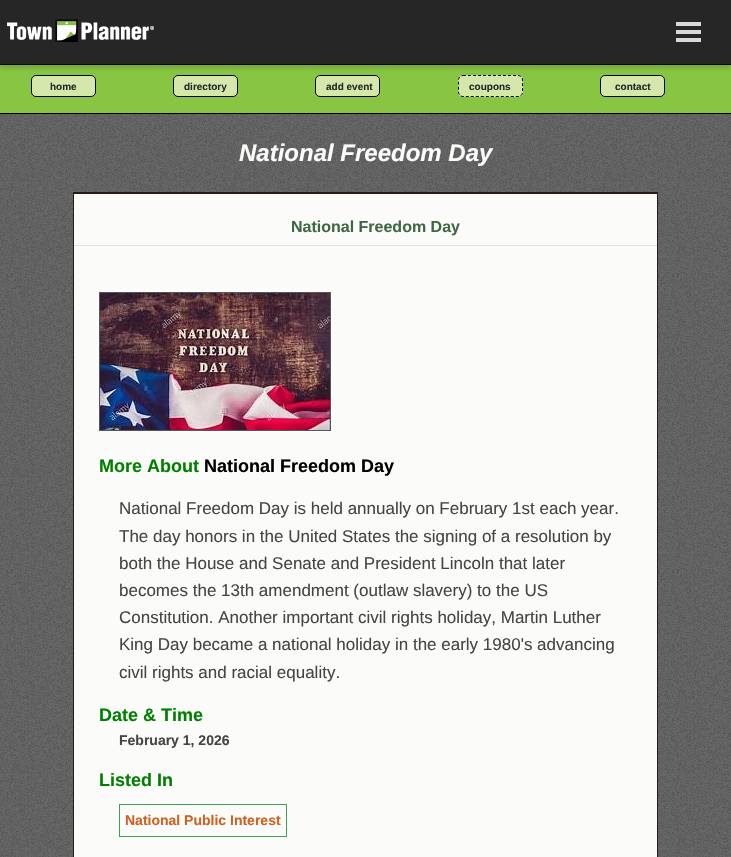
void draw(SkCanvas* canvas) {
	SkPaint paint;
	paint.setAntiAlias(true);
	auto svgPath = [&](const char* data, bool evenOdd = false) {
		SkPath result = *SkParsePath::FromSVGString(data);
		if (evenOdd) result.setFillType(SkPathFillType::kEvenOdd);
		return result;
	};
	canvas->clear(0xffffffff);
	paint.setColor(0xff87c543);
	canvas->drawRect(SkRect::MakeXYWH(0, 65, 731, 48), paint);
	paint.setColor(0xff000000);
	canvas->drawRect(SkRect::MakeXYWH(0, 64, 731, 1), paint);
	paint.setColor(0x26000000);
	paint.setMaskFilter(SkMaskFilter::MakeBlur(kNormal_SkBlurStyle, 2));
	canvas->drawRect(SkRect::MakeXYWH(0, 4, 731, 64), paint);
	paint.setMaskFilter(nullptr);
	paint.setColor(0xff262626);
	canvas->drawRect(SkRect::MakeXYWH(0, 0, 731, 64), paint);
	canvas->drawImageRect(SkImages::DeferredFromEncodedData(SkData::MakeFromFileName("img1.png")), SkRect::MakeXYWH(7, 19, 147, 23), SkSamplingOptions());
	paint.setColor(0xffd9d9d9);
	canvas->drawRect(SkRect::MakeXYWH(676, 22, 25, 4), paint);
	canvas->drawRect(SkRect::MakeXYWH(676, 30, 25, 4), paint);
	canvas->drawRect(SkRect::MakeXYWH(676, 38, 25, 4), paint);
	paint.setColor(0xff000000);
	canvas->drawRect(SkRect::MakeXYWH(0, 113, 731, 1), paint);
	paint.setColor(0xffd5e7ab);
	canvas->drawRoundRect(SkRect::MakeXYWH(31.5, 75.5, 64, 21), 4.5, 4.5, paint);
	paint.setStroke(true);
	paint.setStrokeWidth(1);
	paint.setColor(0xff000000);
	canvas->drawRoundRect(SkRect::MakeXYWH(31.5, 75.5, 64, 21), 4.5, 4.5, paint);
	SkFont f1(fontMgr->matchFamilyStyle("Liberation Sans", SkFontStyle::Bold()), 10);
	f1.setSubpixel(true);
	paint.setStroke(false);
	paint.setColor(0xff282828);
	canvas->drawString("home", 50, 90, f1, paint);
	paint.setColor(0xffd5e7ab);
	canvas->drawRoundRect(SkRect::MakeXYWH(173.5, 75.5, 64, 21), 4.5, 4.5, paint);
	paint.setStroke(true);
	paint.setColor(0xff000000);
	canvas->drawRoundRect(SkRect::MakeXYWH(173.5, 75.5, 64, 21), 4.5, 4.5, paint);
	paint.setStroke(false);
	paint.setColor(0xff282828);
	canvas->drawString("directory", 184, 90, f1, paint);
	paint.setColor(0xffd5e7ab);
	canvas->drawRoundRect(SkRect::MakeXYWH(315.5, 75.5, 64, 21), 4.5, 4.5, paint);
	paint.setStroke(true);
	paint.setColor(0xff000000);
	canvas->drawRoundRect(SkRect::MakeXYWH(315.5, 75.5, 64, 21), 4.5, 4.5, paint);
	paint.setStroke(false);
	paint.setColor(0xff282828);
	canvas->drawString("add event", 326, 90, f1, paint);
	paint.setColor(0xffd5e7ab);
	canvas->drawRoundRect(SkRect::MakeXYWH(458, 75, 65, 22), 5, 5, paint);
	paint.setStroke(true);
	paint.setColor(0xff000000);
	paint.setPathEffect(SkDashPathEffect::Make({{3, 2}}, 0));
	canvas->drawPath(svgPath("M463 75.5H518C520.5 75.5 522.5 77.5 522.5 80V92C522.5 94.5 520.5 96.5 518 96.5H463C460.5 96.5 458.5 94.5 458.5 92V80C458.5 77.5 460.5 75.5 463 75.5Z"), paint);
	paint.setPathEffect(nullptr);
	paint.setStroke(false);
	paint.setColor(0xff282828);
	canvas->drawString("coupons", 469, 90, f1, paint);
	paint.setColor(0xffd5e7ab);
	canvas->drawRoundRect(SkRect::MakeXYWH(600.5, 75.5, 64, 21), 4.5, 4.5, paint);
	paint.setStroke(true);
	paint.setColor(0xff000000);
	canvas->drawRoundRect(SkRect::MakeXYWH(600.5, 75.5, 64, 21), 4.5, 4.5, paint);
	paint.setStroke(false);
	paint.setColor(0xff282828);
	canvas->drawString("contact", 615, 90, f1, paint);
	canvas->drawImageRect(SkImages::DeferredFromEncodedData(SkData::MakeFromFileName("img2.png")), SkRect::MakeXYWH(0, 114, 731, 743), SkSamplingOptions());
	SkFont f2(fontMgr->matchFamilyStyle("Liberation Sans", SkFontStyle::BoldItalic()), 24);
	f2.setSubpixel(true);
	paint.setColor(0xfffbfbf9);
	canvas->drawString("National Freedom Day", 239, 161, f2, paint);
	canvas->drawRect(SkRect::MakeXYWH(74, 194, 583, 663), paint);
	paint.setColor(0xff2b1b17);
	canvas->drawRect(SkRect::MakeXYWH(73, 192, 585, 2), paint);
	canvas->drawRect(SkRect::MakeXYWH(657, 192, 1, 665), paint);
	canvas->drawRect(SkRect::MakeXYWH(73, 192, 1, 665), paint);
	SkFont f3(fontMgr->matchFamilyStyle("Liberation Sans", SkFontStyle::Bold()), 16);
	f3.setSubpixel(true);
	paint.setColor(0xff3f6844);
	canvas->drawString("National Freedom Day", 291, 232, f3, paint);
	paint.setColor(0xffe2e2e0);
	canvas->drawRect(SkRect::MakeXYWH(74, 245, 583, 1), paint);
	paint.setStroke(true);
	paint.setColor(0xff52595d);
	canvas->drawRect(SkRect::MakeXYWH(99.5, 292.5, 231, 138), paint);
	canvas->drawImageRect(SkImages::DeferredFromEncodedData(SkData::MakeFromFileName("img3.png")), SkRect::MakeXYWH(100, 293, 230, 137), SkSamplingOptions());
	SkFont f4(fontMgr->matchFamilyStyle("Liberation Sans", SkFontStyle::Bold()), 18);
	f4.setSubpixel(true);
	paint.setStroke(false);
	paint.setColor(0xff008000);
	canvas->drawString("More About", 99, 472, f4, paint);
	paint.setColor(0xff000000);
	canvas->drawString("National Freedom Day", 204, 472, f4, paint);
	SkFont f5(fontMgr->matchFamilyStyle("Liberation Sans", SkFontStyle::Normal()), 17);
	f5.setSubpixel(true);
	paint.setColor(0xff454545);
	canvas->drawString("National Freedom Day is held annually on February 1st each year.", 119, 514, f5, paint);
	canvas->drawString("The day honors in the United States the signing of a resolution by", 119, 542, f5, paint);
	canvas->drawString("both the House and Senate and President Lincoln that later", 119, 569, f5, paint);
	canvas->drawString("becomes the 13th amendment (outlaw slavery) to the US", 119, 596, f5, paint);
	canvas->drawString("Constitution. Another important civil rights holiday, Martin Luther", 119, 623, f5, paint);
	canvas->drawString("King Day became a national holiday in the early 1980's advancing", 119, 650, f5, paint);
	canvas->drawString("civil rights and racial equality.", 119, 678, f5, paint);
	paint.setColor(0xff008000);
	canvas->drawString("Date & Time", 99, 721, f4, paint);
	SkFont f6(fontMgr->matchFamilyStyle("Liberation Sans", SkFontStyle::Bold()), 14);
	f6.setSubpixel(true);
	paint.setColor(0xff454545);
	canvas->drawString("February 1, 2026", 119, 745, f6, paint);
	paint.setColor(0xff008000);
	canvas->drawString("Listed In", 99, 786, f4, paint);
	paint.setStroke(true);
	paint.setColor(0xff3ea055);
	canvas->drawRect(SkRect::MakeXYWH(119.5, 804.5, 167, 32), paint);
	paint.setStroke(false);
	paint.setColor(0xffcd6221);
	canvas->drawString("National Public Interest", 125, 825, f6, paint);
}
